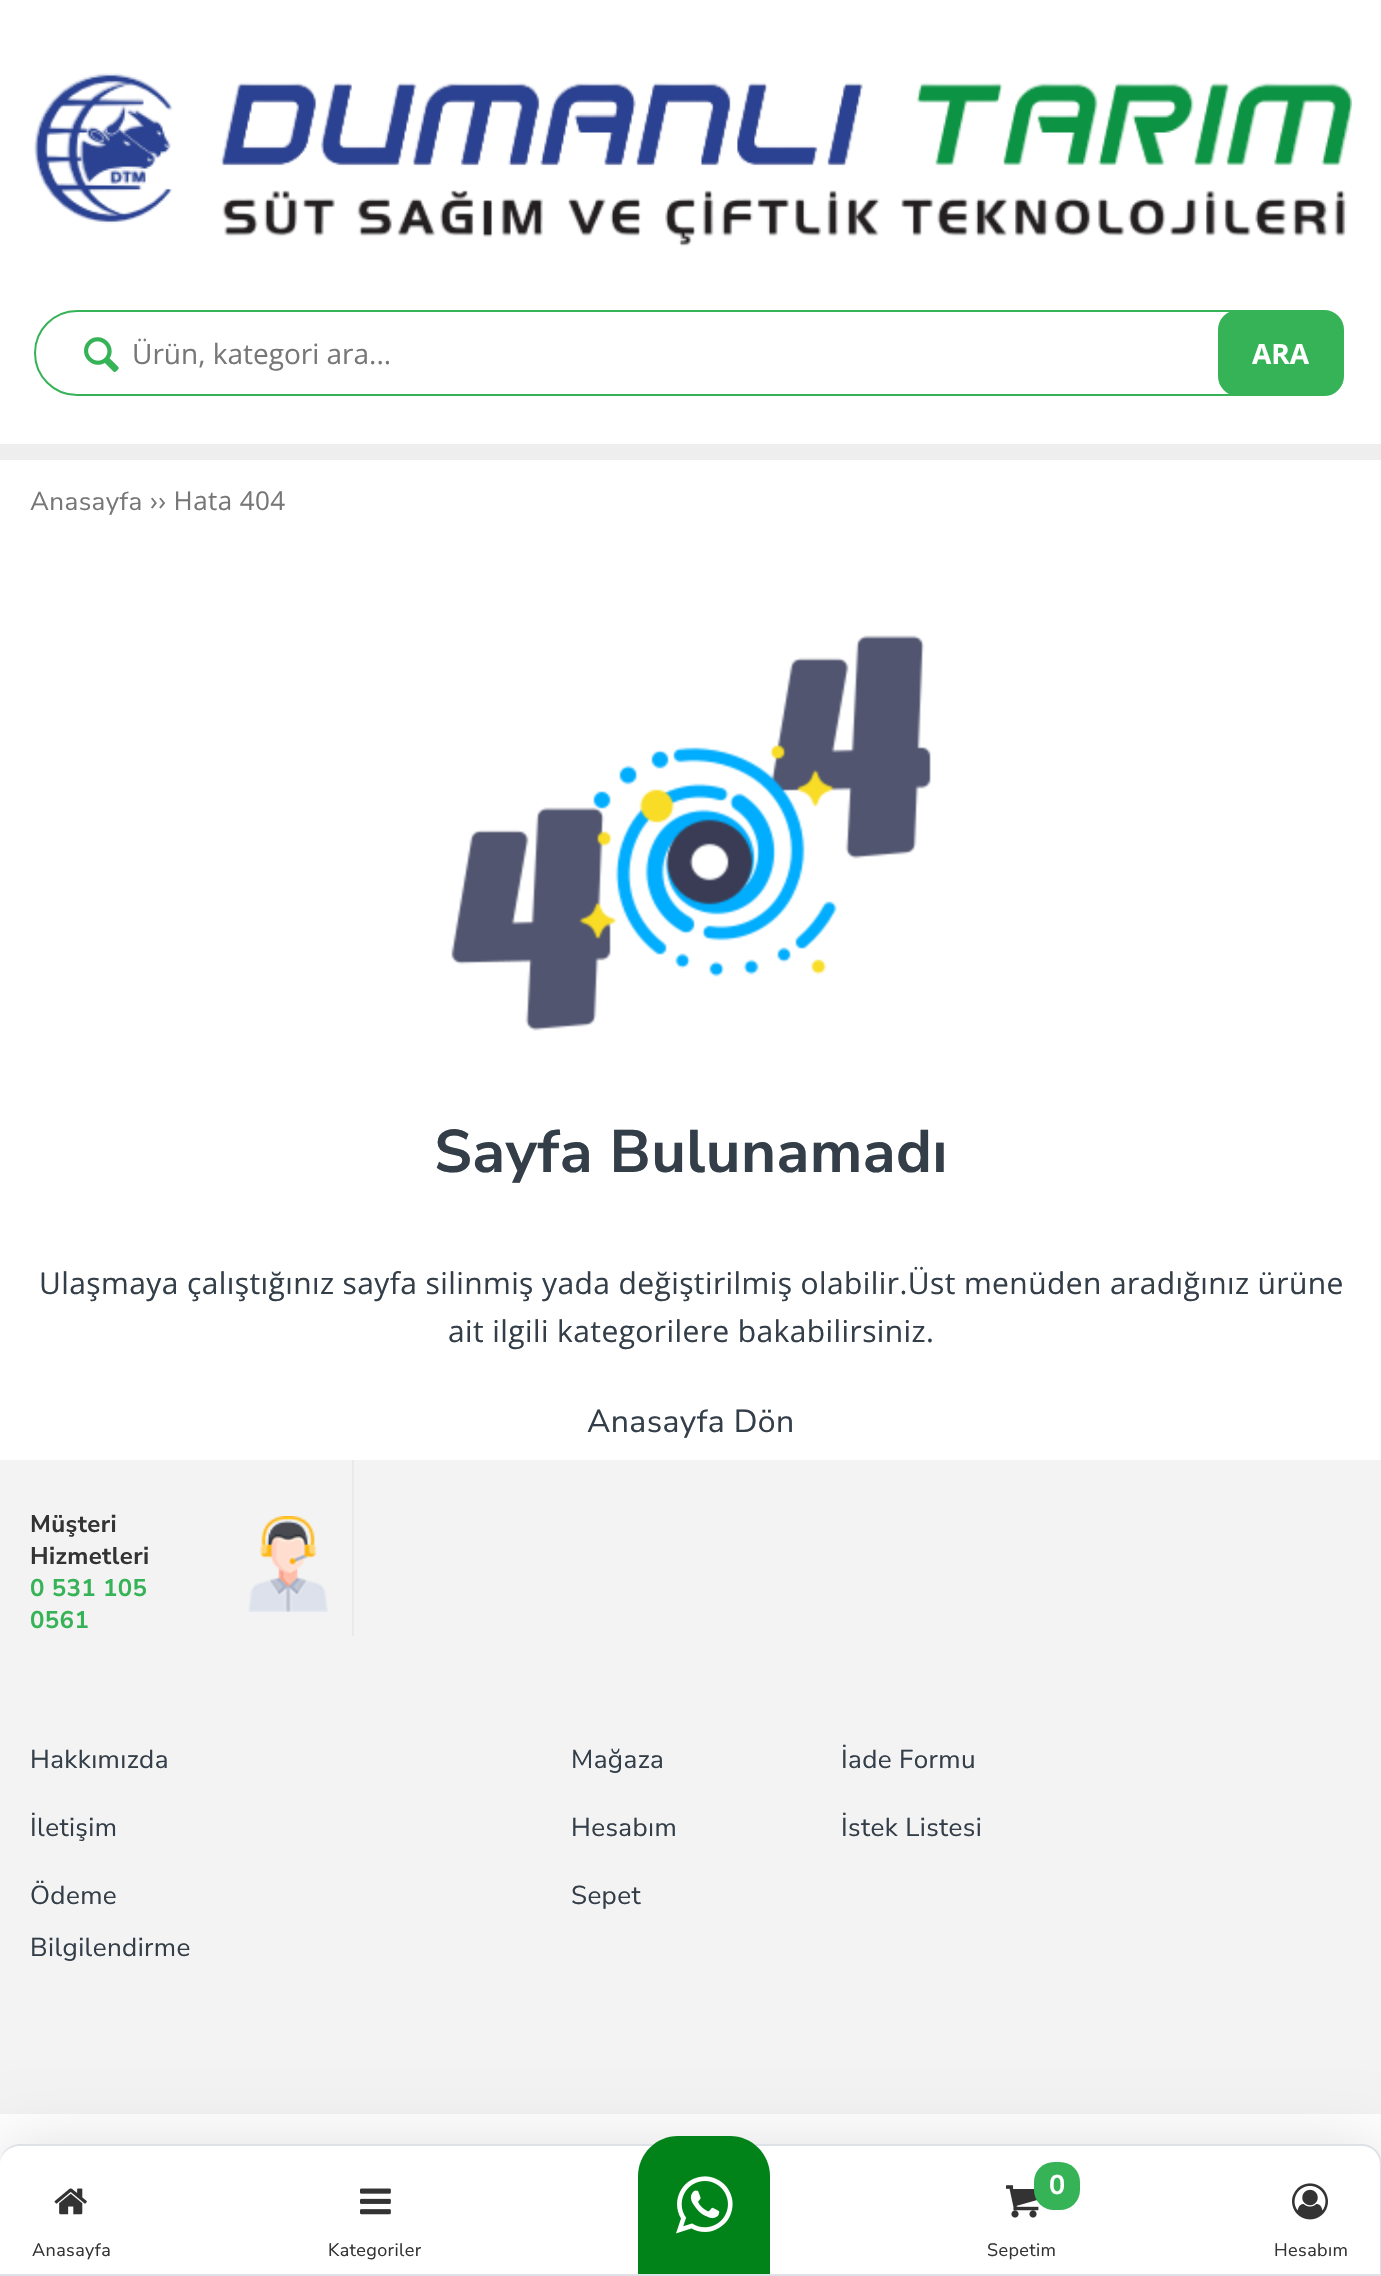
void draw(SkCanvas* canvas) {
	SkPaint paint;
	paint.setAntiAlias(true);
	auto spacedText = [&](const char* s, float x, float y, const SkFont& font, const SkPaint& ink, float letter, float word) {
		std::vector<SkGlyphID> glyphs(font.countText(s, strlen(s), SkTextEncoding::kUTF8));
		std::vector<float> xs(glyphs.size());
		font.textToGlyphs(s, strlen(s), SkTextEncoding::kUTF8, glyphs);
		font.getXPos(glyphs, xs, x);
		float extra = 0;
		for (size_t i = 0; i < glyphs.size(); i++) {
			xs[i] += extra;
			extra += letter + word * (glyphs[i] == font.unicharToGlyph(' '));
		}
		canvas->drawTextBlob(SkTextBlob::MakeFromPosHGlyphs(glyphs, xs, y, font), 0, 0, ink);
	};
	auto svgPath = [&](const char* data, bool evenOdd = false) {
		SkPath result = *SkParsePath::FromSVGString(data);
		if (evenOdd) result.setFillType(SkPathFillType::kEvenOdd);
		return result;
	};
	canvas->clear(0xffffffff);
	canvas->drawImageRect(SkImages::DeferredFromEncodedData(SkData::MakeFromFileName("img1.png")), SkRect::MakeXYWH(33, 73, 1319, 174), SkSamplingOptions());
	paint.setStroke(true);
	paint.setStrokeWidth(2);
	paint.setColor(0xff36b257);
	canvas->drawRoundRect(SkRect::MakeXYWH(35, 311, 1280, 84), 42, 42, paint);
	canvas->drawImageRect(SkImages::DeferredFromEncodedData(SkData::MakeFromFileName("img2.png")), SkRect::MakeXYWH(84, 337, 35, 35), SkSamplingOptions());
	SkFont f1(fontMgr->matchFamilyStyle("Open Sans", SkFontStyle::Normal()), 28);
	f1.setSubpixel(true);
	paint.setStroke(false);
	paint.setColor(0xff777777);
	canvas->drawString("Ürün, kategori ara...", 132, 364, f1, paint);
	paint.setColor(0xff36b257);
	canvas->drawRoundRect(SkRect::MakeXYWH(1219, 311, 124, 84), 19, 19, paint);
	paint.setStroke(true);
	canvas->drawRoundRect(SkRect::MakeXYWH(1219, 311, 124, 84), 19, 19, paint);
	SkFont f2(fontMgr->matchFamilyStyle("Open Sans", SkFontStyle::Bold()), 28);
	f2.setSubpixel(true);
	paint.setStroke(false);
	paint.setColor(0xffffffff);
	canvas->drawString("ARA", 1252, 364, f2, paint);
	paint.setColor(0xfff3f3f3);
	canvas->drawRect(SkRect::MakeXYWH(0, 1460, 1381, 654), paint);
	paint.setColor(0x1f000000);
	paint.setMaskFilter(SkMaskFilter::MakeBlur(kNormal_SkBlurStyle, 32));
	canvas->drawRoundRect(SkRect::MakeXYWH(0, 2144, 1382, 132), 20, 20, paint);
	paint.setMaskFilter(nullptr);
	paint.setColor(0xffffffff);
	canvas->drawPath(svgPath("M20 2146H1362C1372 2146 1380 2154 1380 2164V2274H0V2164C0 2154 9 2146 20 2146Z"), paint);
	paint.setColor(0xffdee2e6);
	canvas->drawPath(svgPath("M20 2144H1362C1373 2144 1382 2153 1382 2164V2276H0V2164C0 2153 9 2144 20 2144ZM20 2146H1362C1372 2146 1380 2154 1380 2164V2274H0V2164C0 2154 9 2146 20 2146Z", true), paint);
	canvas->drawImageRect(SkImages::DeferredFromEncodedData(SkData::MakeFromFileName("img3.png")), SkRect::MakeXYWH(54, 2188, 33, 27), SkSamplingOptions());
	SkFont f3(fontMgr->matchFamilyStyle("Nunito Sans", SkFontStyle::Normal()), 18);
	f3.setSubpixel(true);
	paint.setColor(0xff333333);
	spacedText("Anasayfa", 32, 2256, f3, paint, 0.4, 0);
	canvas->drawImageRect(SkImages::DeferredFromEncodedData(SkData::MakeFromFileName("img4.png")), SkRect::MakeXYWH(360, 2188, 31, 27), SkSamplingOptions());
	spacedText("Kategoriler", 328, 2256, f3, paint, 0.4, 0);
	paint.setColor(0xff018319);
	canvas->drawPath(svgPath("M678 2136H730C752 2136 770 2154 770 2176V2274H638V2176C638 2154 656 2136 678 2136Z"), paint);
	canvas->drawImageRect(SkImages::DeferredFromEncodedData(SkData::MakeFromFileName("img5.png")), SkRect::MakeXYWH(676, 2176, 57, 58), SkSamplingOptions());
	canvas->drawImageRect(SkImages::DeferredFromEncodedData(SkData::MakeFromFileName("img6.png")), SkRect::MakeXYWH(1006, 2185, 33, 33), SkSamplingOptions());
	paint.setColor(0xff36b257);
	canvas->drawRoundRect(SkRect::MakeXYWH(1034, 2162, 46, 48), 20, 20, paint);
	SkFont f4(fontMgr->matchFamilyStyle("Nunito Sans", SkFontStyle::Bold()), 27);
	f4.setSubpixel(true);
	paint.setColor(0xffffffff);
	spacedText("0", 1049, 2194, f4, paint, 0.4, 0);
	paint.setColor(0xff333333);
	spacedText("Sepetim", 987, 2256, f3, paint, 0.4, 0);
	canvas->drawImageRect(SkImages::DeferredFromEncodedData(SkData::MakeFromFileName("img7.png")), SkRect::MakeXYWH(1292, 2183, 36, 37), SkSamplingOptions());
	spacedText("Hesabım", 1274, 2256, f3, paint, 0.4, 0);
	paint.setColor(0xffeeeeee);
	canvas->drawRect(SkRect::MakeXYWH(0, 444, 1381, 16), paint);
	SkFont f5(fontMgr->matchFamilyStyle("Nunito Sans", SkFontStyle::Normal()), 26);
	f5.setSubpixel(true);
	paint.setColor(0xff777777);
	spacedText("Anasayfa", 30, 510, f5, paint, 0.4, 0);
	SkFont f6(fontMgr->matchFamilyStyle("Open Sans", SkFontStyle::Normal()), 26);
	f6.setSubpixel(true);
	spacedText("›› Hata 404", 150, 510, f6, paint, 0.4, 0);
	canvas->drawImageRect(SkImages::DeferredFromEncodedData(SkData::MakeFromFileName("img8.png")), SkRect::MakeXYWH(451, 635, 480, 396), SkSamplingOptions());
	SkFont f7(fontMgr->matchFamilyStyle("Nunito Sans", SkFontStyle::Bold()), 60);
	f7.setSubpixel(true);
	paint.setColor(0xff333e48);
	spacedText("Sayfa Bulunamadı", 434, 1172, f7, paint, 0.4, 0);
	SkFont f8(fontMgr->matchFamilyStyle("Open Sans", SkFontStyle::Normal()), 30);
	f8.setSubpixel(true);
	spacedText("Ulaşmaya çalıştığınız sayfa silinmiş yada değiştirilmiş olabilir.Üst menüden aradığınız ürüne", 39, 1294, f8, paint, 0.4, 0);
	spacedText("ait ilgili kategorilere bakabilirsiniz.", 448, 1342, f8, paint, 0.4, 0);
	SkFont f9(fontMgr->matchFamilyStyle("Nunito Sans", SkFontStyle::Normal()), 32);
	f9.setSubpixel(true);
	spacedText("Anasayfa Dön", 587, 1432, f9, paint, 0.4, 0);
	paint.setColor(0xffeaeaea);
	canvas->drawRect(SkRect::MakeXYWH(352, 1460, 2, 176), paint);
	SkFont f10(fontMgr->matchFamilyStyle("Nunito Sans", SkFontStyle::Bold()), 24);
	f10.setSubpixel(true);
	paint.setColor(0xff333333);
	spacedText("Müşteri", 30, 1532, f10, paint, 0.4, 0);
	spacedText("Hizmetleri", 30, 1564, f10, paint, 0.4, 0);
	paint.setColor(0xff36b257);
	spacedText("0 531 105", 30, 1596, f10, paint, 0.4, 0);
	spacedText("0561", 30, 1628, f10, paint, 0.4, 0);
	canvas->drawImageRect(SkImages::DeferredFromEncodedData(SkData::MakeFromFileName("img9.png")), SkRect::MakeXYWH(248, 1516, 80, 96), SkSamplingOptions());
	paint.setColor(0xff333e48);
	spacedText("Hakkımızda", 30, 1768, f5, paint, 0.4, 0);
	spacedText("İletişim", 30, 1836, f5, paint, 0.4, 0);
	spacedText("Ödeme", 30, 1904, f5, paint, 0.4, 0);
	spacedText("Bilgilendirme", 30, 1956, f5, paint, 0.4, 0);
	spacedText("Mağaza", 571, 1768, f5, paint, 0.4, 0);
	spacedText("Hesabım", 571, 1836, f5, paint, 0.4, 0);
	spacedText("Sepet", 571, 1904, f5, paint, 0.4, 0);
	spacedText("İade Formu", 841, 1768, f5, paint, 0.4, 0);
	spacedText("İstek Listesi", 841, 1836, f5, paint, 0.4, 0);
}
